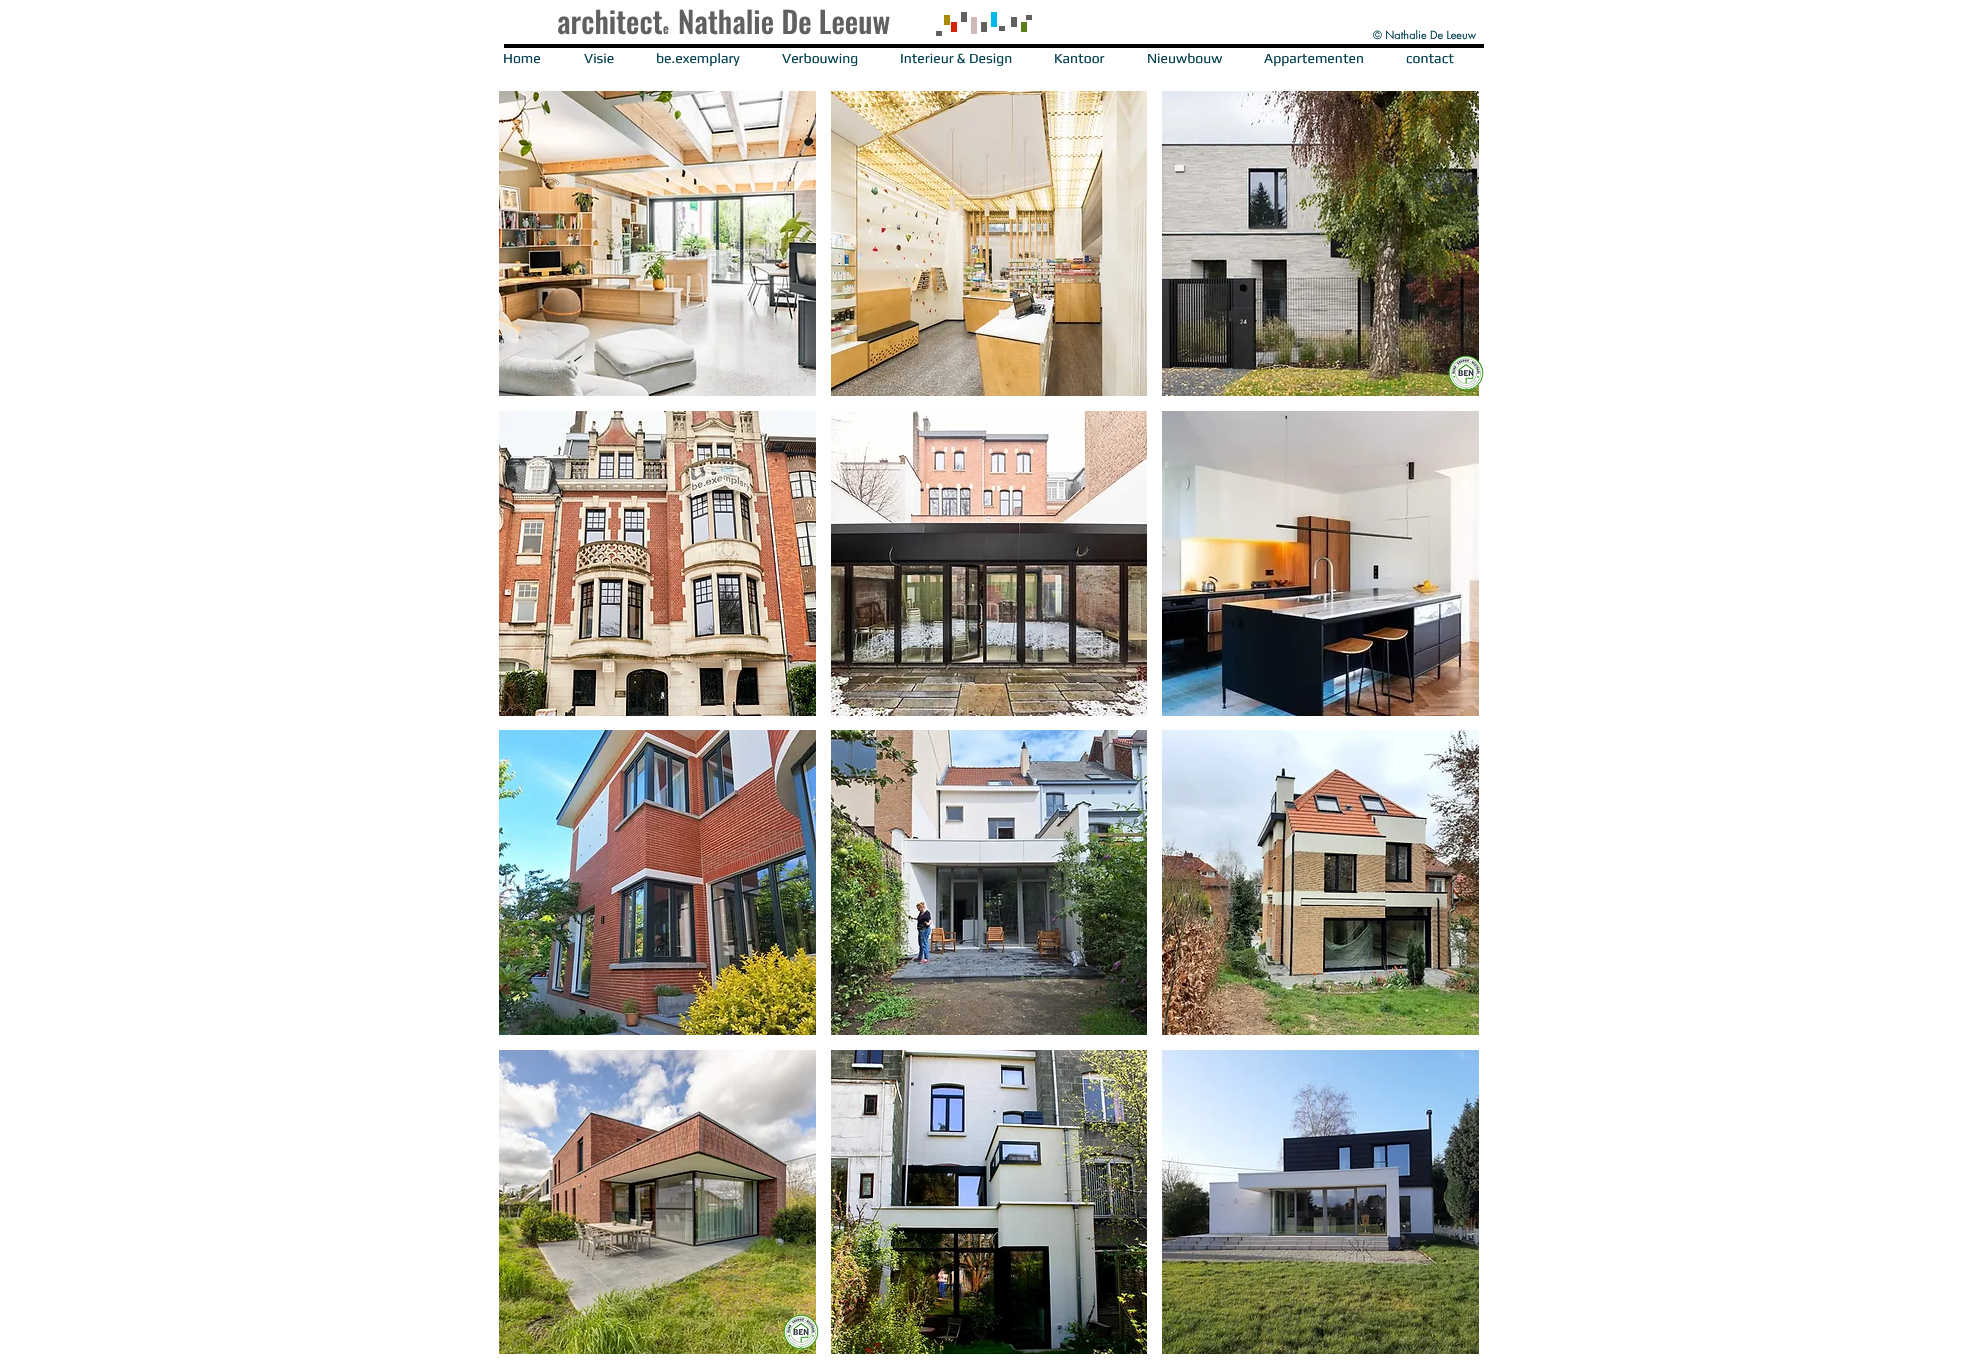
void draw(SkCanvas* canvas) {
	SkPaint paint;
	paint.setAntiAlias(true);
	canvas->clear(0xffffffff);
	SkFont f1(fontMgr->matchFamilyStyle("Oswald", SkFontStyle(500, SkFontStyle::kNormal_Width, SkFontStyle::kUpright_Slant)), 30);
	f1.setSubpixel(true);
	paint.setColor(0xff606060);
	canvas->drawString("architect", 557, 34, f1, paint);
	SkFont f2(fontMgr->matchFamilyStyle("Oswald", SkFontStyle(500, SkFontStyle::kNormal_Width, SkFontStyle::kUpright_Slant)), 13);
	f2.setSubpixel(true);
	canvas->drawString("e", 663, 34, f2, paint);
	canvas->drawString("Nathalie De Leeuw", 678, 34, f1, paint);
	paint.setColor(0xffa98a00);
	canvas->drawRect(SkRect::MakeXYWH(944, 15, 6, 10), paint);
	paint.setColor(0xffd32300);
	canvas->drawRect(SkRect::MakeXYWH(951, 22, 6, 10), paint);
	paint.setColor(0xff606060);
	canvas->drawRect(SkRect::MakeXYWH(961, 12, 6, 10), paint);
	paint.setColor(0xffcfbaba);
	canvas->drawRect(SkRect::MakeXYWH(971, 17, 6, 17), paint);
	paint.setColor(0xff606060);
	canvas->drawRect(SkRect::MakeXYWH(981, 22, 6, 10), paint);
	paint.setColor(0xff00b9e8);
	canvas->drawRect(SkRect::MakeXYWH(991, 12, 6, 15), paint);
	paint.setColor(0xff606060);
	canvas->drawRect(SkRect::MakeXYWH(999, 26, 6, 5), paint);
	canvas->drawRect(SkRect::MakeXYWH(1011, 17, 6, 10), paint);
	paint.setColor(0xff5b7f18);
	canvas->drawRect(SkRect::MakeXYWH(1021, 22, 6, 10), paint);
	paint.setColor(0xff606060);
	canvas->drawRect(SkRect::MakeXYWH(1026, 15, 6, 5), paint);
	canvas->drawRect(SkRect::MakeXYWH(936, 31, 6, 5), paint);
	SkFont f3(fontMgr->matchFamilyStyle("futura", SkFontStyle::Normal()), 11);
	f3.setSubpixel(true);
	paint.setColor(0xff003e4d);
	canvas->drawString("© Nathalie De Leeuw", 1373, 39, f3, paint);
	paint.setColor(0xff000000);
	canvas->drawRect(SkRect::MakeXYWH(504, 44, 980, 4), paint);
	SkFont f4(fontMgr->matchFamilyStyle("Play", SkFontStyle::Normal()), 14);
	f4.setSubpixel(true);
	paint.setColor(0xff003e4d);
	canvas->drawString("Home", 503, 63, f4, paint);
	canvas->drawString("Visie", 584, 63, f4, paint);
	canvas->drawString("be.exemplary", 656, 63, f4, paint);
	canvas->drawString("Verbouwing", 782, 63, f4, paint);
	canvas->drawString("Interieur & Design", 900, 63, f4, paint);
	canvas->drawString("Kantoor", 1054, 63, f4, paint);
	canvas->drawString("Nieuwbouw", 1147, 63, f4, paint);
	canvas->drawString("Appartementen", 1264, 63, f4, paint);
	canvas->drawString("contact", 1406, 63, f4, paint);
	canvas->drawImageRect(SkImages::DeferredFromEncodedData(SkData::MakeFromFileName("img1.png")), SkRect::MakeXYWH(499, 91, 317, 305), SkSamplingOptions());
	canvas->drawImageRect(SkImages::DeferredFromEncodedData(SkData::MakeFromFileName("img2.png")), SkRect::MakeXYWH(831, 91, 316, 305), SkSamplingOptions());
	canvas->drawImageRect(SkImages::DeferredFromEncodedData(SkData::MakeFromFileName("img3.png")), SkRect::MakeXYWH(1162, 91, 317, 305), SkSamplingOptions());
	canvas->drawImageRect(SkImages::DeferredFromEncodedData(SkData::MakeFromFileName("img4.png")), SkRect::MakeXYWH(499, 411, 317, 305), SkSamplingOptions());
	canvas->drawImageRect(SkImages::DeferredFromEncodedData(SkData::MakeFromFileName("img5.png")), SkRect::MakeXYWH(831, 411, 316, 305), SkSamplingOptions());
	canvas->drawImageRect(SkImages::DeferredFromEncodedData(SkData::MakeFromFileName("img6.png")), SkRect::MakeXYWH(1162, 411, 317, 305), SkSamplingOptions());
	canvas->drawImageRect(SkImages::DeferredFromEncodedData(SkData::MakeFromFileName("img7.png")), SkRect::MakeXYWH(499, 730, 317, 305), SkSamplingOptions());
	canvas->drawImageRect(SkImages::DeferredFromEncodedData(SkData::MakeFromFileName("img8.png")), SkRect::MakeXYWH(831, 730, 316, 305), SkSamplingOptions());
	canvas->drawImageRect(SkImages::DeferredFromEncodedData(SkData::MakeFromFileName("img9.png")), SkRect::MakeXYWH(1162, 730, 317, 305), SkSamplingOptions());
	canvas->drawImageRect(SkImages::DeferredFromEncodedData(SkData::MakeFromFileName("img10.png")), SkRect::MakeXYWH(499, 1050, 317, 304), SkSamplingOptions());
	canvas->drawImageRect(SkImages::DeferredFromEncodedData(SkData::MakeFromFileName("img11.png")), SkRect::MakeXYWH(831, 1050, 316, 304), SkSamplingOptions());
	canvas->drawImageRect(SkImages::DeferredFromEncodedData(SkData::MakeFromFileName("img12.png")), SkRect::MakeXYWH(1162, 1050, 317, 304), SkSamplingOptions());
	canvas->drawImageRect(SkImages::DeferredFromEncodedData(SkData::MakeFromFileName("img13.png")), SkRect::MakeXYWH(1448, 355, 36, 36), SkSamplingOptions());
	canvas->drawImageRect(SkImages::DeferredFromEncodedData(SkData::MakeFromFileName("img14.png")), SkRect::MakeXYWH(783, 1314, 36, 36), SkSamplingOptions());
}
